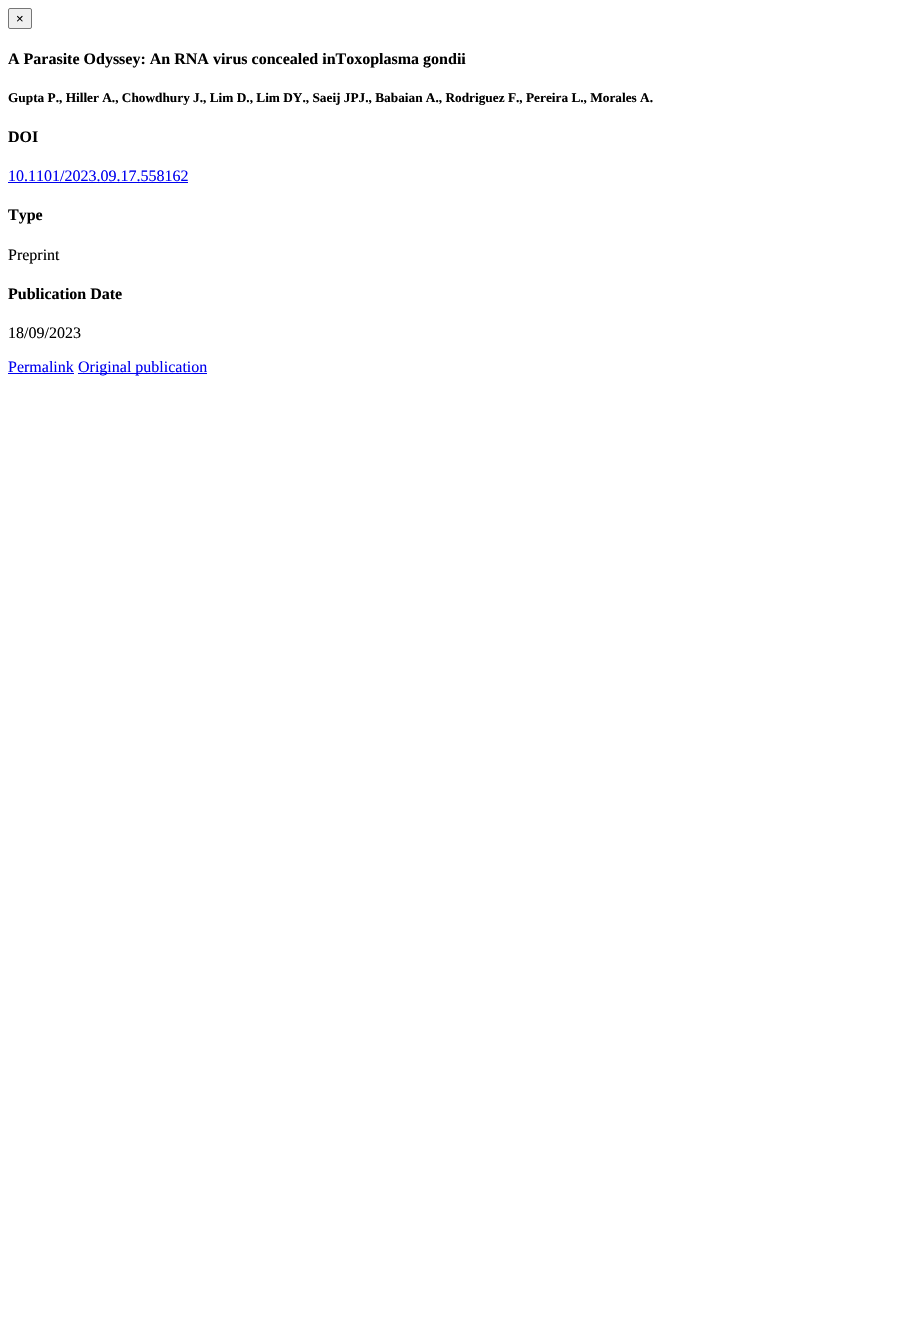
void draw(SkCanvas* canvas) {
	SkPaint paint;
	paint.setAntiAlias(true);
	canvas->clear(0xffffffff);
	paint.setColor(0xffefefef);
	canvas->drawRoundRect(SkRect::MakeXYWH(8.5, 8.5, 23, 20), 1.5, 1.5, paint);
	paint.setStroke(true);
	paint.setStrokeWidth(1);
	paint.setColor(0xff767676);
	canvas->drawRoundRect(SkRect::MakeXYWH(8.5, 8.5, 23, 20), 1.5, 1.5, paint);
	SkFont f1(fontMgr->matchFamilyStyle("Liberation Sans", SkFontStyle::Normal()), 13);
	f1.setSubpixel(true);
	paint.setStroke(false);
	paint.setColor(0xff000000);
	canvas->drawString("×", 16, 23, f1, paint);
	SkFont f2(fontMgr->matchFamilyStyle("Liberation Serif", SkFontStyle::Bold()), 16);
	f2.setSubpixel(true);
	canvas->drawString("A Parasite Odyssey: An RNA virus concealed inToxoplasma gondii", 8, 64, f2, paint);
	SkFont f3(fontMgr->matchFamilyStyle("Liberation Serif", SkFontStyle::Bold()), 13.3);
	f3.setSubpixel(true);
	canvas->drawString("Gupta P., Hiller A., Chowdhury J., Lim D., Lim DY., Saeij JPJ., Babaian A., Rodriguez F., Pereira L., Morales A.", 8, 102, f3, paint);
	canvas->drawString("DOI", 8, 142, f2, paint);
	SkFont f4(fontMgr->matchFamilyStyle("Liberation Serif", SkFontStyle::Normal()), 16);
	f4.setSubpixel(true);
	paint.setColor(0xff0000ee);
	canvas->drawString("10.1101/2023.09.17.558162", 8, 181, f4, paint);
	canvas->drawRect(SkRect::MakeXYWH(8, 182, 180, 1), paint);
	paint.setColor(0xff000000);
	canvas->drawString("Type", 8, 220, f2, paint);
	canvas->drawString("Preprint", 8, 260, f4, paint);
	canvas->drawString("Publication Date", 8, 299, f2, paint);
	canvas->drawString("18/09/2023", 8, 338, f4, paint);
	paint.setColor(0xff0000ee);
	canvas->drawString("Permalink", 8, 372, f4, paint);
	canvas->drawRect(SkRect::MakeXYWH(8, 373, 66, 1), paint);
	canvas->drawRect(SkRect::MakeXYWH(78, 373, 129, 1), paint);
	canvas->drawString("Original publication", 78, 372, f4, paint);
}
